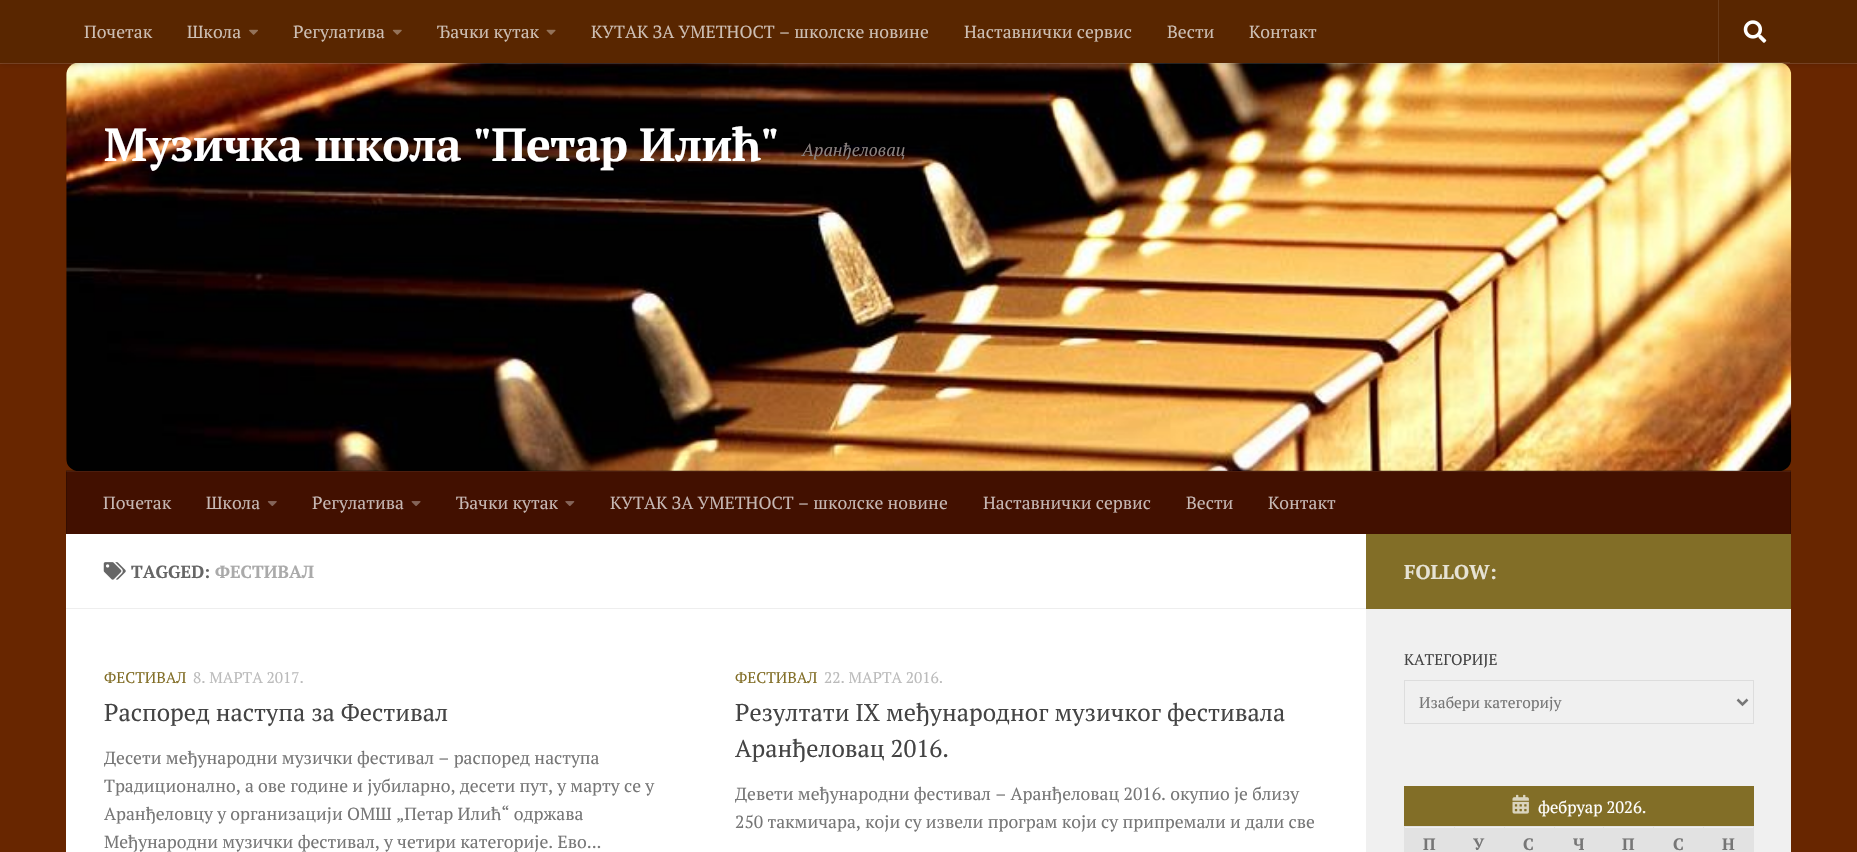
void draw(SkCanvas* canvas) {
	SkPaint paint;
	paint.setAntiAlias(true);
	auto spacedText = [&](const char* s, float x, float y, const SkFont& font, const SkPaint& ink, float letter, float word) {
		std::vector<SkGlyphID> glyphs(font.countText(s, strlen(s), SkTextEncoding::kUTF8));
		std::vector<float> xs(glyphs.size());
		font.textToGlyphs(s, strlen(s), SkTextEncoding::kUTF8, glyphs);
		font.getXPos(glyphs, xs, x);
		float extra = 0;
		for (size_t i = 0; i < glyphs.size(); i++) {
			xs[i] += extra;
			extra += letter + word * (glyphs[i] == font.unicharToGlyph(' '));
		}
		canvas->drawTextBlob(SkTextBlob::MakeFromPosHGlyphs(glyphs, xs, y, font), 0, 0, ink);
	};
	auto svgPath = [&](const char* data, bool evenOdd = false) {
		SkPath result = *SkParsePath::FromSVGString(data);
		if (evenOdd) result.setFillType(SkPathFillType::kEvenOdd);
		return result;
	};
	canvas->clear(0xff682600);
	canvas->drawImageRect(SkImages::DeferredFromEncodedData(SkData::MakeFromFileName("img5.png")), SkRect::MakeXYWH(66, 63, 1726, 408), SkSamplingOptions());
	paint.setColor(0x26ffffff);
	canvas->drawPath(svgPath("M0 62V64H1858V1V62Z"), paint);
	paint.setColor(0x33000000);
	paint.setMaskFilter(SkMaskFilter::MakeBlur(kNormal_SkBlurStyle, 3));
	canvas->drawRect(SkRect::MakeXYWH(0, 0, 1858, 63), paint);
	paint.setMaskFilter(nullptr);
	paint.setColor(0xff592600);
	canvas->drawRect(SkRect::MakeXYWH(0, 0, 1857, 63), paint);
	SkFont f1(fontMgr->matchFamilyStyle("PT Serif", SkFontStyle::Normal()), 17.6);
	f1.setSubpixel(true);
	paint.setColor(0xffcdbeb3);
	canvas->drawString("Почетак", 84, 38, f1, paint);
	canvas->drawString("Школа", 187, 38, f1, paint);
	canvas->drawImageRect(SkImages::DeferredFromEncodedData(SkData::MakeFromFileName("img1.png")), SkRect::MakeXYWH(249, 29, 9, 6), SkSamplingOptions());
	canvas->drawString("Регулатива", 293, 38, f1, paint);
	canvas->drawImageRect(SkImages::DeferredFromEncodedData(SkData::MakeFromFileName("img2.png")), SkRect::MakeXYWH(392, 29, 10, 6), SkSamplingOptions());
	canvas->drawString("Ђачки кутак", 437, 38, f1, paint);
	canvas->drawImageRect(SkImages::DeferredFromEncodedData(SkData::MakeFromFileName("img3.png")), SkRect::MakeXYWH(546, 29, 10, 6), SkSamplingOptions());
	canvas->drawString("КУТАК ЗА УМЕТНОСТ – школске новине", 591, 38, f1, paint);
	canvas->drawString("Наставнички сервис", 964, 38, f1, paint);
	canvas->drawString("Вести", 1167, 38, f1, paint);
	canvas->drawString("Контакт", 1249, 38, f1, paint);
	paint.setColor(0xff6a3c1a);
	canvas->drawPath(svgPath("M1718 0V63H1790V62H1719V0Z"), paint);
	canvas->drawImageRect(SkImages::DeferredFromEncodedData(SkData::MakeFromFileName("img4.png")), SkRect::MakeXYWH(1743, 20, 24, 23), SkSamplingOptions());
	SkFont f2(fontMgr->matchFamilyStyle("PT Serif", SkFontStyle::Bold()), 46.25);
	f2.setSubpixel(true);
	paint.setColor(0xffffffff);
	spacedText("Музичка школа \"Петар Илић\"", 104, 161, f2, paint, -0.6, 0);
	SkFont f3(fontMgr->matchFamilyStyle("PT Serif", SkFontStyle::Italic()), 17.6);
	f3.setSubpixel(true);
	paint.setColor(0xff8c8381);
	canvas->drawString("Аранђеловац", 802, 156, f3, paint);
	paint.setColor(0x33000000);
	canvas->drawPath(svgPath("M66 470V533V471H1791V470Z"), paint);
	paint.setColor(0xff421000);
	canvas->drawRect(SkRect::MakeXYWH(67, 471, 1723, 63), paint);
	paint.setColor(0xff350d00);
	canvas->drawRect(SkRect::MakeXYWH(1790, 471, 1, 63), paint);
	canvas->drawRect(SkRect::MakeXYWH(66, 471, 1, 63), paint);
	paint.setColor(0x0dffffff);
	canvas->drawRect(SkRect::MakeXYWH(66, 471, 1725, 1), paint);
	paint.setColor(0xffc6b7b3);
	canvas->drawString("Почетак", 103, 509, f1, paint);
	canvas->drawString("Школа", 206, 509, f1, paint);
	canvas->drawImageRect(SkImages::DeferredFromEncodedData(SkData::MakeFromFileName("img6.png")), SkRect::MakeXYWH(267, 501, 10, 5), SkSamplingOptions());
	canvas->drawString("Регулатива", 312, 509, f1, paint);
	canvas->drawImageRect(SkImages::DeferredFromEncodedData(SkData::MakeFromFileName("img7.png")), SkRect::MakeXYWH(411, 501, 10, 5), SkSamplingOptions());
	canvas->drawString("Ђачки кутак", 456, 509, f1, paint);
	canvas->drawImageRect(SkImages::DeferredFromEncodedData(SkData::MakeFromFileName("img8.png")), SkRect::MakeXYWH(565, 501, 10, 5), SkSamplingOptions());
	canvas->drawString("КУТАК ЗА УМЕТНОСТ – школске новине", 610, 509, f1, paint);
	canvas->drawString("Наставнички сервис", 983, 509, f1, paint);
	canvas->drawString("Вести", 1186, 509, f1, paint);
	canvas->drawString("Контакт", 1268, 509, f1, paint);
	paint.setColor(0xffffffff);
	canvas->drawRect(SkRect::MakeXYWH(66, 534, 1300, 318), paint);
	paint.setColor(0xffeeeeee);
	canvas->drawRect(SkRect::MakeXYWH(66, 608, 1300, 1), paint);
	canvas->drawImageRect(SkImages::DeferredFromEncodedData(SkData::MakeFromFileName("img9.png")), SkRect::MakeXYWH(103, 562, 23, 18), SkSamplingOptions());
	SkFont f4(fontMgr->matchFamilyStyle("PT Serif", SkFontStyle::Bold()), 17.6);
	f4.setSubpixel(true);
	paint.setColor(0xff666666);
	canvas->drawString("TAGGED:", 131, 578, f4, paint);
	paint.setColor(0xffaaaaaa);
	canvas->drawString("ФЕСТИВАЛ", 215, 578, f4, paint);
	SkFont f5(fontMgr->matchFamilyStyle("PT Serif", SkFontStyle::Normal()), 15.5);
	f5.setSubpixel(true);
	paint.setColor(0xff826e27);
	canvas->drawString("ФЕСТИВАЛ", 104, 683, f5, paint);
	paint.setColor(0xffbbbbbb);
	canvas->drawString("8. МАРТА 2017.", 193, 683, f5, paint);
	SkFont f6(fontMgr->matchFamilyStyle("PT Serif", SkFontStyle::Normal()), 24.2);
	f6.setSubpixel(true);
	paint.setColor(0xff444444);
	canvas->drawString("Распоред наступа за Фестивал", 104, 721, f6, paint);
	paint.setColor(0xff767676);
	canvas->drawString("Десети међународни музички фестивал – распоред наступа", 104, 764, f1, paint);
	canvas->drawString("Традиционално, а ове године и јубиларно, десети пут, у марту се у", 104, 792, f1, paint);
	canvas->drawString("Аранђеловцу у организацији ОМШ „Петар Илић“ одржава", 104, 820, f1, paint);
	canvas->drawString("Међународни музички фестивал, у четири категорије. Ево...", 104, 848, f1, paint);
	paint.setColor(0xff826e27);
	canvas->drawString("ФЕСТИВАЛ", 735, 683, f5, paint);
	paint.setColor(0xffbbbbbb);
	canvas->drawString("22. МАРТА 2016.", 824, 683, f5, paint);
	paint.setColor(0xff444444);
	canvas->drawString("Резултати IX међународног музичког фестивала", 735, 721, f6, paint);
	canvas->drawString("Аранђеловац 2016.", 735, 757, f6, paint);
	paint.setColor(0xff767676);
	canvas->drawString("Девети међународни фестивал – Аранђеловац 2016. окупио је близу", 735, 800, f1, paint);
	canvas->drawString("250 такмичара, који су извели програм који су припремали и дали све", 735, 828, f1, paint);
	paint.setColor(0xff826e27);
	canvas->drawRect(SkRect::MakeXYWH(1366, 534, 425, 75), paint);
	SkFont f7(fontMgr->matchFamilyStyle("PT Serif", SkFontStyle::Bold()), 20);
	f7.setSubpixel(true);
	paint.setColor(0xffe6e2d4);
	canvas->drawString("FOLLOW:", 1404, 579, f7, paint);
	paint.setColor(0xfff0f0f0);
	canvas->drawRect(SkRect::MakeXYWH(1366, 609, 425, 243), paint);
	paint.setColor(0xff444444);
	canvas->drawString("КАТЕГОРИЈЕ", 1404, 665, f5, paint);
	paint.setStroke(true);
	paint.setStrokeWidth(1);
	paint.setColor(0xffdddddd);
	canvas->drawRect(SkRect::MakeXYWH(1404.5, 680.5, 349, 43), paint);
	paint.setStrokeWidth(2.5);
	paint.setColor(0xff777777);
	canvas->drawPath(svgPath("M1737.5 699.5L1742.5 704.5L1747.5 699.5"), paint);
	paint.setStroke(false);
	paint.setColor(0xff767676);
	canvas->drawString("Изабери категорију", 1419, 708, f5, paint);
	paint.setColor(0xff826e27);
	canvas->drawRect(SkRect::MakeXYWH(1404, 786, 350, 40), paint);
	canvas->drawImageRect(SkImages::DeferredFromEncodedData(SkData::MakeFromFileName("img10.png")), SkRect::MakeXYWH(1512, 794, 17, 20), SkSamplingOptions());
	SkFont f8(fontMgr->matchFamilyStyle("PT Serif", SkFontStyle::Normal()), 16.5);
	f8.setSubpixel(true);
	paint.setColor(0xffffffff);
	canvas->drawString("фебруар 2026.", 1538, 813, f8, paint);
	paint.setColor(0xffe2e2e2);
	canvas->drawRect(SkRect::MakeXYWH(1405, 828, 348, 24), paint);
	canvas->drawRect(SkRect::MakeXYWH(1703, 826, 51, 1), paint);
	canvas->drawRect(SkRect::MakeXYWH(1703, 826, 1, 2), paint);
	canvas->drawRect(SkRect::MakeXYWH(1653, 826, 51, 1), paint);
	canvas->drawRect(SkRect::MakeXYWH(1653, 826, 1, 2), paint);
	canvas->drawRect(SkRect::MakeXYWH(1603, 826, 51, 1), paint);
	canvas->drawRect(SkRect::MakeXYWH(1603, 826, 1, 2), paint);
	canvas->drawRect(SkRect::MakeXYWH(1554, 826, 50, 1), paint);
	canvas->drawRect(SkRect::MakeXYWH(1554, 826, 1, 2), paint);
	canvas->drawRect(SkRect::MakeXYWH(1504, 826, 51, 1), paint);
	canvas->drawRect(SkRect::MakeXYWH(1504, 826, 1, 2), paint);
	canvas->drawRect(SkRect::MakeXYWH(1454, 826, 51, 1), paint);
	canvas->drawRect(SkRect::MakeXYWH(1454, 826, 1, 2), paint);
	canvas->drawRect(SkRect::MakeXYWH(1404, 826, 51, 1), paint);
	canvas->drawRect(SkRect::MakeXYWH(1404, 826, 1, 26), paint);
	SkFont f9(fontMgr->matchFamilyStyle("PT Serif", SkFontStyle::Bold()), 16.5);
	f9.setSubpixel(true);
	paint.setColor(0xff767676);
	canvas->drawString("П", 1423, 850, f9, paint);
	canvas->drawString("У", 1473, 850, f9, paint);
	canvas->drawString("С", 1523, 850, f9, paint);
	canvas->drawString("Ч", 1573, 850, f9, paint);
	canvas->drawString("П", 1622, 850, f9, paint);
	canvas->drawString("С", 1673, 850, f9, paint);
	paint.setColor(0xffe2e2e2);
	canvas->drawRect(SkRect::MakeXYWH(1753, 826, 1, 26), paint);
	paint.setColor(0xff767676);
	canvas->drawString("Н", 1722, 850, f9, paint);
}
